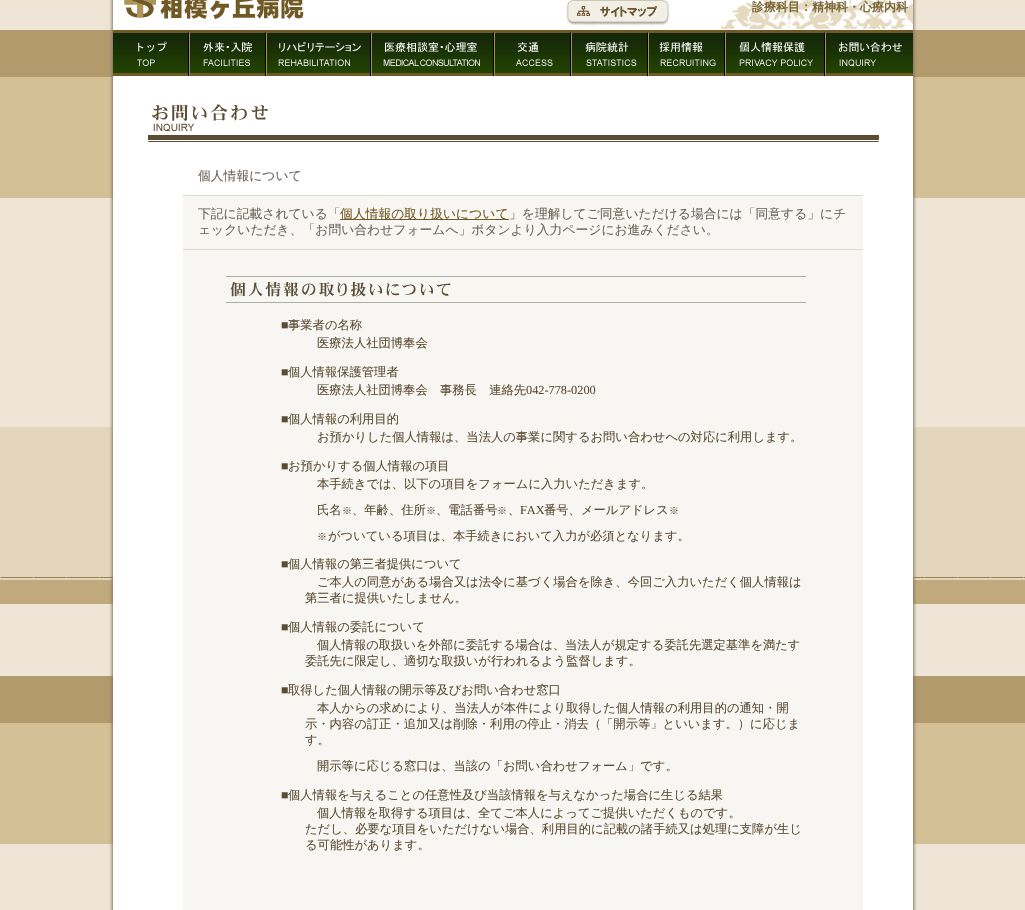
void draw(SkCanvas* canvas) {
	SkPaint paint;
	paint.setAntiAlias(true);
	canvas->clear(0xffeee5d6);
	canvas->drawImageRect(SkImages::DeferredFromEncodedData(SkData::MakeFromFileName("img1.png")), SkRect::MakeXYWH(0, 30, 1025, 814), SkSamplingOptions());
	canvas->drawImageRect(SkImages::DeferredFromEncodedData(SkData::MakeFromFileName("img2.png")), SkRect::MakeXYWH(109, 0, 808, 910), SkSamplingOptions());
	canvas->drawImageRect(SkImages::DeferredFromEncodedData(SkData::MakeFromFileName("img3.png")), SkRect::MakeXYWH(124, 0, 789, 29), SkSamplingOptions());
	canvas->drawImageRect(SkImages::DeferredFromEncodedData(SkData::MakeFromFileName("img4.png")), SkRect::MakeXYWH(566, 0, 104, 26), SkSamplingOptions());
	SkFont f1(fontMgr->matchFamilyStyle("WenQuanYi Zen Hei", SkFontStyle::Bold()), 12);
	f1.setSubpixel(true);
	paint.setColor(0xff776233);
	canvas->drawString("診療科目：精神科・心療内科", 752, 11, f1, paint);
	canvas->drawImageRect(SkImages::DeferredFromEncodedData(SkData::MakeFromFileName("img5.png")), SkRect::MakeXYWH(113, 30, 77, 46), SkSamplingOptions());
	canvas->drawImageRect(SkImages::DeferredFromEncodedData(SkData::MakeFromFileName("img6.png")), SkRect::MakeXYWH(190, 30, 77, 46), SkSamplingOptions());
	canvas->drawImageRect(SkImages::DeferredFromEncodedData(SkData::MakeFromFileName("img7.png")), SkRect::MakeXYWH(267, 30, 105, 46), SkSamplingOptions());
	canvas->drawImageRect(SkImages::DeferredFromEncodedData(SkData::MakeFromFileName("img8.png")), SkRect::MakeXYWH(372, 30, 123, 46), SkSamplingOptions());
	canvas->drawImageRect(SkImages::DeferredFromEncodedData(SkData::MakeFromFileName("img9.png")), SkRect::MakeXYWH(495, 30, 77, 46), SkSamplingOptions());
	canvas->drawImageRect(SkImages::DeferredFromEncodedData(SkData::MakeFromFileName("img10.png")), SkRect::MakeXYWH(572, 30, 77, 46), SkSamplingOptions());
	canvas->drawImageRect(SkImages::DeferredFromEncodedData(SkData::MakeFromFileName("img11.png")), SkRect::MakeXYWH(649, 30, 77, 46), SkSamplingOptions());
	canvas->drawImageRect(SkImages::DeferredFromEncodedData(SkData::MakeFromFileName("img12.png")), SkRect::MakeXYWH(726, 30, 100, 46), SkSamplingOptions());
	canvas->drawImageRect(SkImages::DeferredFromEncodedData(SkData::MakeFromFileName("img13.png")), SkRect::MakeXYWH(826, 30, 87, 46), SkSamplingOptions());
	canvas->drawImageRect(SkImages::DeferredFromEncodedData(SkData::MakeFromFileName("img14.png")), SkRect::MakeXYWH(148, 104, 731, 38), SkSamplingOptions());
	paint.setColor(0xffe1d9ca);
	canvas->drawRect(SkRect::MakeXYWH(183, 195, 680, 1), paint);
	SkFont f2(fontMgr->matchFamilyStyle("WenQuanYi Zen Hei", SkFontStyle(500, SkFontStyle::kNormal_Width, SkFontStyle::kUpright_Slant)), 12.8);
	f2.setSubpixel(true);
	paint.setColor(0xff6d645b);
	canvas->drawString("個人情報について", 198, 180, f2, paint);
	paint.setColor(0xfff8f6f2);
	canvas->drawRect(SkRect::MakeXYWH(183, 196, 680, 53), paint);
	paint.setColor(0xffe1d9ca);
	canvas->drawRect(SkRect::MakeXYWH(183, 249, 680, 1), paint);
	paint.setColor(0xff6d645b);
	canvas->drawString("下記に記載されている「", 198, 218, f2, paint);
	paint.setColor(0xff705924);
	canvas->drawRect(SkRect::MakeXYWH(340, 219, 169, 1), paint);
	canvas->drawString("個人情報の取り扱いについて", 340, 218, f2, paint);
	paint.setColor(0xff6d645b);
	canvas->drawString("」を理解してご同意いただける場合には「同意する」にチ", 509, 218, f2, paint);
	canvas->drawString("ェックいただき、「お問い合わせフォームへ」ボタンより入力ページにお進みください。", 198, 234, f2, paint);
	paint.setColor(0xfff8f6f2);
	canvas->drawRect(SkRect::MakeXYWH(183, 250, 680, 660), paint);
	paint.setColor(0xffa9b1a5);
	canvas->drawRect(SkRect::MakeXYWH(226, 276, 580, 1), paint);
	canvas->drawRect(SkRect::MakeXYWH(226, 302, 580, 1), paint);
	canvas->drawImageRect(SkImages::DeferredFromEncodedData(SkData::MakeFromFileName("img15.png")), SkRect::MakeXYWH(230, 282, 221, 15), SkSamplingOptions());
	SkFont f3(fontMgr->matchFamilyStyle("Liberation Serif", SkFontStyle::Normal()), 12.3);
	f3.setSubpixel(true);
	paint.setColor(0xff5b4c34);
	canvas->drawString("■", 281, 329, f3, paint);
	SkFont f4(fontMgr->matchFamilyStyle("WenQuanYi Zen Hei", SkFontStyle(500, SkFontStyle::kNormal_Width, SkFontStyle::kUpright_Slant)), 12.3);
	f4.setSubpixel(true);
	canvas->drawString("事業者の名称", 288, 329, f4, paint);
	canvas->drawString("医療法人社団博奉会", 317, 347, f4, paint);
	canvas->drawString("■", 281, 376, f3, paint);
	canvas->drawString("個人情報保護管理者", 288, 376, f4, paint);
	canvas->drawString("医療法人社団博奉会　事務長　連絡先", 317, 394, f4, paint);
	canvas->drawString("042-778-0200", 526, 394, f3, paint);
	canvas->drawString("■", 281, 423, f3, paint);
	canvas->drawString("個人情報の利用目的", 288, 423, f4, paint);
	canvas->drawString("お預かりした個人情報は、当法人の事業に関するお問い合わせへの対応に利用します。", 317, 441, f4, paint);
	canvas->drawString("■", 281, 470, f3, paint);
	canvas->drawString("お預かりする個人情報の項目", 288, 470, f4, paint);
	canvas->drawString("本手続きでは、以下の項目をフォームに入力いただきます。", 317, 488, f4, paint);
	canvas->drawString("氏名", 317, 514, f4, paint);
	SkFont f5(fontMgr->matchFamilyStyle("WenQuanYi Zen Hei", SkFontStyle(500, SkFontStyle::kNormal_Width, SkFontStyle::kUpright_Slant)), 10);
	f5.setSubpixel(true);
	canvas->drawString("※", 342, 514, f5, paint);
	canvas->drawString("、年齢、住所", 352, 514, f4, paint);
	canvas->drawString("※", 426, 514, f5, paint);
	canvas->drawString("、電話番号", 436, 514, f4, paint);
	canvas->drawString("※", 497, 514, f5, paint);
	canvas->drawString("FAX", 520, 514, f3, paint);
	canvas->drawString("番号、メールアドレス", 544, 514, f4, paint);
	canvas->drawString("※", 669, 514, f5, paint);
	canvas->drawString("、", 508, 514, f4, paint);
	canvas->drawString("※", 317, 540, f5, paint);
	canvas->drawString("がついている項目は、本手続きにおいて入力が必須となります。", 328, 540, f4, paint);
	canvas->drawString("■", 281, 568, f3, paint);
	canvas->drawString("個人情報の第三者提供について", 288, 568, f4, paint);
	canvas->drawString("ご本人の同意がある場合又は法令に基づく場合を除き、今回ご入力いただく個人情報は", 317, 586, f4, paint);
	canvas->drawString("第三者に提供いたしません。", 305, 602, f4, paint);
	canvas->drawString("■", 281, 631, f3, paint);
	canvas->drawString("個人情報の委託について", 288, 631, f4, paint);
	canvas->drawString("個人情報の取扱いを外部に委託する場合は、当法人が規定する委託先選定基準を満たす", 317, 649, f4, paint);
	canvas->drawString("委託先に限定し、適切な取扱いが行われるよう監督します。", 305, 665, f4, paint);
	canvas->drawString("■", 281, 694, f3, paint);
	canvas->drawString("取得した個人情報の開示等及びお問い合わせ窓口", 288, 694, f4, paint);
	canvas->drawString("本人からの求めにより、当法人が本件により取得した個人情報の利用目的の通知・開", 317, 712, f4, paint);
	canvas->drawString("示・内容の訂正・追加又は削除・利用の停止・消去（「開示等」といいます。）に応じま", 305, 728, f4, paint);
	canvas->drawString("す。", 305, 744, f4, paint);
	canvas->drawString("開示等に応じる窓口は、当該の「お問い合わせフォーム」です。", 317, 770, f4, paint);
	canvas->drawString("■", 281, 799, f3, paint);
	canvas->drawString("個人情報を与えることの任意性及び当該情報を与えなかった場合に生じる結果", 288, 799, f4, paint);
	canvas->drawString("個人情報を取得する項目は、全てご本人によってご提供いただくものです。", 317, 817, f4, paint);
	canvas->drawString("ただし、必要な項目をいただけない場合、利用目的に記載の諸手続又は処理に支障が生じ", 305, 833, f4, paint);
	canvas->drawString("る可能性があります。", 305, 849, f4, paint);
}
